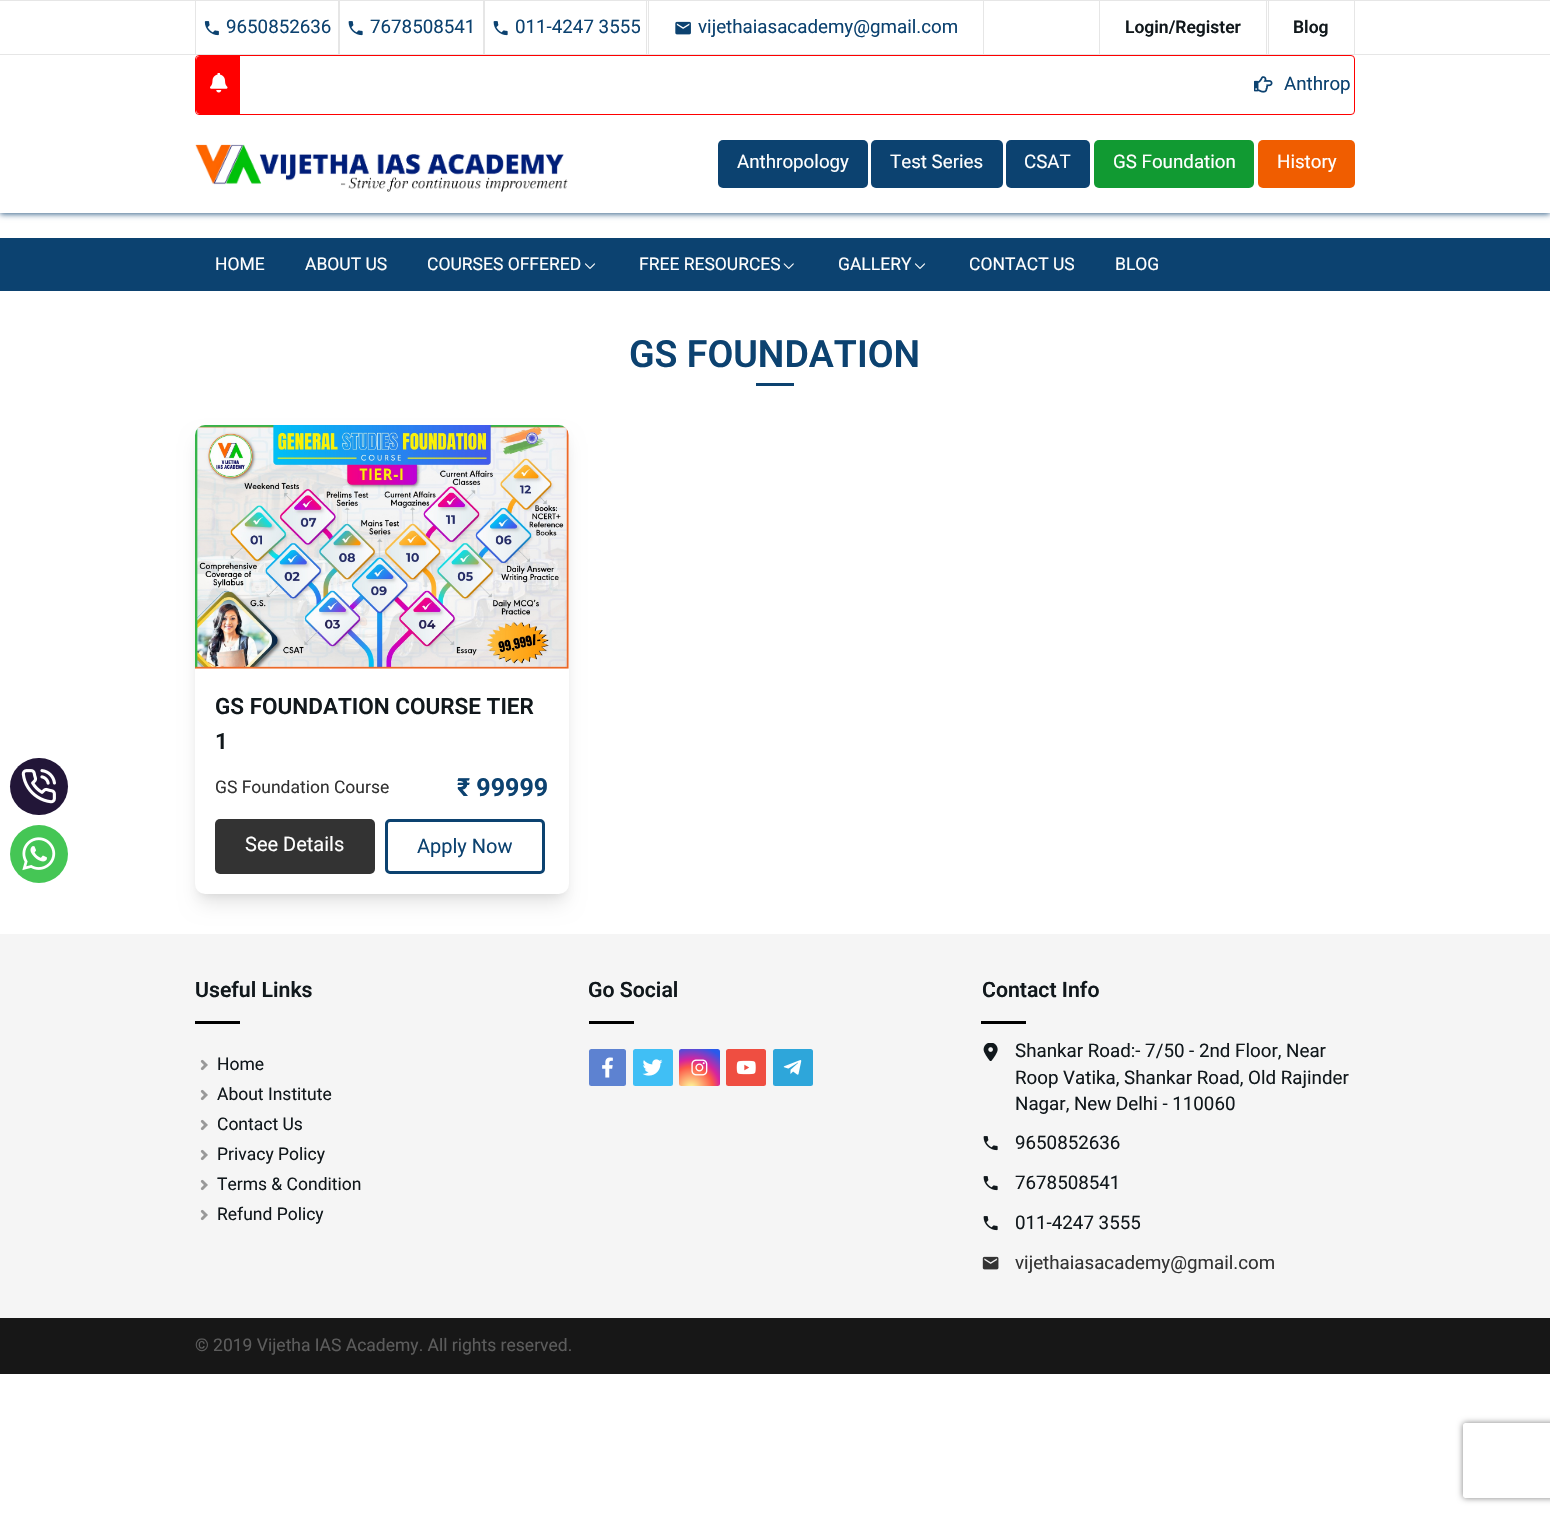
void draw(SkCanvas* canvas) {
	SkPaint paint;
	paint.setAntiAlias(true);
	auto svgPath = [&](const char* data, bool evenOdd = false) {
		SkPath result = *SkParsePath::FromSVGString(data);
		if (evenOdd) result.setFillType(SkPathFillType::kEvenOdd);
		return result;
	};
	canvas->clear(0xffffffff);
	canvas->save();
	canvas->clipPath(svgPath("M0 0H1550V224H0ZM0 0H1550V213H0Z", true), true);
	paint.setColor(0xff335f87);
	paint.setMaskFilter(SkMaskFilter::MakeBlur(kNormal_SkBlurStyle, 3));
	canvas->drawRect(SkRect::MakeXYWH(0, 1, 1550, 213), paint);
	paint.setMaskFilter(nullptr);
	canvas->restore();
	paint.setColor(0xffe6e6e6);
	canvas->drawRect(SkRect::MakeXYWH(0, 0, 1550, 1), paint);
	canvas->drawRect(SkRect::MakeXYWH(0, 54, 1550, 1), paint);
	canvas->drawRect(SkRect::MakeXYWH(338, 1, 2, 53), paint);
	canvas->drawRect(SkRect::MakeXYWH(195, 1, 1, 53), paint);
	canvas->drawImageRect(SkImages::DeferredFromEncodedData(SkData::MakeFromFileName("img1.png")), SkRect::MakeXYWH(204, 21, 15, 15), SkSamplingOptions());
	SkFont f1(fontMgr->matchFamilyStyle("Roboto", SkFontStyle::Normal()), 18.75);
	f1.setSubpixel(true);
	paint.setColor(0xff0c4270);
	canvas->drawString("9650852636", 226, 33, f1, paint);
	paint.setColor(0xffe6e6e6);
	canvas->drawRect(SkRect::MakeXYWH(483, 1, 2, 53), paint);
	canvas->drawImageRect(SkImages::DeferredFromEncodedData(SkData::MakeFromFileName("img2.png")), SkRect::MakeXYWH(348, 21, 15, 15), SkSamplingOptions());
	paint.setColor(0xff0c4270);
	canvas->drawString("7678508541", 370, 33, f1, paint);
	paint.setColor(0xffe6e6e6);
	canvas->drawRect(SkRect::MakeXYWH(646, 1, 1, 53), paint);
	canvas->drawImageRect(SkImages::DeferredFromEncodedData(SkData::MakeFromFileName("img2.png")), SkRect::MakeXYWH(493, 21, 15, 15), SkSamplingOptions());
	paint.setColor(0xff0c4270);
	canvas->drawString("011-4247 3555", 515, 33, f1, paint);
	paint.setColor(0xffe6e6e6);
	canvas->drawRect(SkRect::MakeXYWH(983, 1, 1, 53), paint);
	canvas->drawRect(SkRect::MakeXYWH(648, 1, 1, 53), paint);
	canvas->drawImageRect(SkImages::DeferredFromEncodedData(SkData::MakeFromFileName("img3.png")), SkRect::MakeXYWH(675, 21, 16, 14), SkSamplingOptions());
	paint.setColor(0xff0c4270);
	canvas->drawString("vijethaiasacademy@gmail.com", 698, 33, f1, paint);
	paint.setColor(0xffe6e6e6);
	canvas->drawRect(SkRect::MakeXYWH(1266, 1, 1, 53), paint);
	canvas->drawRect(SkRect::MakeXYWH(1099, 1, 1, 53), paint);
	SkFont f2(fontMgr->matchFamilyStyle("Roboto", SkFontStyle(600, SkFontStyle::kNormal_Width, SkFontStyle::kUpright_Slant)), 17.5);
	f2.setSubpixel(true);
	paint.setColor(0xff11181c);
	canvas->drawString("Login/Register", 1125, 33, f2, paint);
	paint.setColor(0xffe6e6e6);
	canvas->drawRect(SkRect::MakeXYWH(1354, 1, 1, 53), paint);
	canvas->drawRect(SkRect::MakeXYWH(1268, 1, 1, 53), paint);
	paint.setColor(0xff11181c);
	canvas->drawString("Blog", 1293, 33, f2, paint);
	paint.setStroke(true);
	paint.setStrokeWidth(1);
	paint.setColor(0xffff0000);
	canvas->drawRoundRect(SkRect::MakeXYWH(195.5, 55.5, 1159, 59), 3.5, 3.5, paint);
	paint.setStroke(false);
	canvas->drawPath(svgPath("M200 56H240V114H200C198 114 196 112 196 110V60C196 58 198 56 200 56Z"), paint);
	canvas->drawImageRect(SkImages::DeferredFromEncodedData(SkData::MakeFromFileName("img4.png")), SkRect::MakeXYWH(210, 73, 18, 20), SkSamplingOptions());
	canvas->drawImageRect(SkImages::DeferredFromEncodedData(SkData::MakeFromFileName("img5.png")), SkRect::MakeXYWH(1254, 76, 19, 17), SkSamplingOptions());
	paint.setColor(0xff0c4270);
	canvas->drawString("Anthrop", 1284, 90, f1, paint);
	canvas->drawImageRect(SkImages::DeferredFromEncodedData(SkData::MakeFromFileName("img6.png")), SkRect::MakeXYWH(195, 144, 373, 48), SkSamplingOptions());
	canvas->drawRoundRect(SkRect::MakeXYWH(718, 140, 150, 48), 5, 5, paint);
	paint.setColor(0xffffffff);
	canvas->drawString("Anthropology", 737, 168, f1, paint);
	paint.setColor(0xff0c4270);
	canvas->drawRoundRect(SkRect::MakeXYWH(871, 140, 132, 48), 5, 5, paint);
	paint.setColor(0xffffffff);
	canvas->drawString("Test Series", 890, 168, f1, paint);
	paint.setColor(0xff0c4270);
	canvas->drawRoundRect(SkRect::MakeXYWH(1006, 140, 84, 48), 5, 5, paint);
	paint.setColor(0xffffffff);
	canvas->drawString("CSAT", 1024, 168, f1, paint);
	paint.setColor(0xff119a32);
	canvas->drawRoundRect(SkRect::MakeXYWH(1094, 140, 160, 48), 5, 5, paint);
	paint.setColor(0xffffffff);
	canvas->drawString("GS Foundation", 1113, 168, f1, paint);
	paint.setColor(0xfff05d00);
	canvas->drawRoundRect(SkRect::MakeXYWH(1258, 140, 97, 48), 5, 5, paint);
	paint.setColor(0xffffffff);
	canvas->drawString("History", 1277, 168, f1, paint);
	paint.setColor(0xff0c4270);
	canvas->drawRect(SkRect::MakeXYWH(0, 238, 1550, 53), paint);
	SkFont f3(fontMgr->matchFamilyStyle("Roboto", SkFontStyle::Normal()), 17.5);
	f3.setSubpixel(true);
	paint.setColor(0xffffffff);
	canvas->drawString("HOME", 215, 270, f3, paint);
	canvas->drawString("ABOUT US", 305, 270, f3, paint);
	canvas->drawString("COURSES OFFERED", 427, 270, f3, paint);
	canvas->drawImageRect(SkImages::DeferredFromEncodedData(SkData::MakeFromFileName("img7.png")), SkRect::MakeXYWH(584, 263, 12, 6), SkSamplingOptions());
	canvas->drawString("FREE RESOURCES", 639, 270, f3, paint);
	canvas->drawImageRect(SkImages::DeferredFromEncodedData(SkData::MakeFromFileName("img8.png")), SkRect::MakeXYWH(783, 263, 11, 6), SkSamplingOptions());
	canvas->drawString("GALLERY", 838, 270, f3, paint);
	canvas->drawImageRect(SkImages::DeferredFromEncodedData(SkData::MakeFromFileName("img7.png")), SkRect::MakeXYWH(914, 263, 12, 6), SkSamplingOptions());
	canvas->drawString("CONTACT US", 969, 270, f3, paint);
	canvas->drawString("BLOG", 1115, 270, f3, paint);
	paint.setColor(0xff221638);
	canvas->drawRoundRect(SkRect::MakeXYWH(10, 758, 58, 57), 28.5, 28.5, paint);
	canvas->drawImageRect(SkImages::DeferredFromEncodedData(SkData::MakeFromFileName("img9.png")), SkRect::MakeXYWH(21, 769, 35, 35), SkSamplingOptions());
	paint.setColor(0xff45c655);
	canvas->drawCircle(39, 854, 29, paint);
	canvas->drawImageRect(SkImages::DeferredFromEncodedData(SkData::MakeFromFileName("img10.png")), SkRect::MakeXYWH(22, 837, 34, 34), SkSamplingOptions());
	SkFont f4(fontMgr->matchFamilyStyle("Roboto", SkFontStyle(600, SkFontStyle::kNormal_Width, SkFontStyle::kUpright_Slant)), 37.5);
	f4.setSubpixel(true);
	paint.setColor(0xff0c4270);
	canvas->drawString("GS FOUNDATION", 629, 367, f4, paint);
	canvas->drawRect(SkRect::MakeXYWH(756, 383, 38, 3), paint);
	paint.setColor(0x1a000000);
	paint.setMaskFilter(SkMaskFilter::MakeBlur(kNormal_SkBlurStyle, 4));
	canvas->drawRoundRect(SkRect::MakeXYWH(200, 435, 364, 459), 5, 5, paint);
	paint.setMaskFilter(nullptr);
	paint.setMaskFilter(SkMaskFilter::MakeBlur(kNormal_SkBlurStyle, 9.5));
	canvas->drawRoundRect(SkRect::MakeXYWH(199, 441, 366, 462), 6, 6, paint);
	paint.setMaskFilter(nullptr);
	paint.setColor(0xffffffff);
	canvas->drawRoundRect(SkRect::MakeXYWH(195, 425, 374, 469), 10, 10, paint);
	canvas->drawImageRect(SkImages::DeferredFromEncodedData(SkData::MakeFromFileName("img11.png")), SkRect::MakeXYWH(195, 425, 374, 244), SkSamplingOptions());
	SkFont f5(fontMgr->matchFamilyStyle("Roboto", SkFontStyle(600, SkFontStyle::kNormal_Width, SkFontStyle::kUpright_Slant)), 22.5);
	f5.setSubpixel(true);
	paint.setColor(0xff11181c);
	canvas->drawString("GS FOUNDATION COURSE TIER", 215, 714, f5, paint);
	canvas->drawString("1", 215, 749, f5, paint);
	paint.setColor(0xff333333);
	canvas->drawString("GS Foundation Course", 215, 793, f3, paint);
	SkFont f6(fontMgr->matchFamilyStyle("Roboto", SkFontStyle::Bold()), 25);
	f6.setSubpixel(true);
	paint.setColor(0xff0c4270);
	canvas->drawString("₹ 99999", 457, 796, f6, paint);
	paint.setColor(0xff333333);
	canvas->drawRoundRect(SkRect::MakeXYWH(215, 819, 160, 55), 5, 5, paint);
	SkFont f7(fontMgr->matchFamilyStyle("Roboto", SkFontStyle::Normal()), 20);
	f7.setSubpixel(true);
	paint.setColor(0xffffffff);
	canvas->drawString("See Details", 245, 851, f7, paint);
	paint.setStroke(true);
	paint.setStrokeWidth(3);
	paint.setColor(0xff0c4270);
	canvas->drawRoundRect(SkRect::MakeXYWH(386.5, 820.5, 157, 52), 3.5, 3.5, paint);
	paint.setStroke(false);
	canvas->drawString("Apply Now", 417, 853, f7, paint);
	paint.setColor(0xfff5f5f5);
	canvas->drawRect(SkRect::MakeXYWH(0, 934, 1550, 384), paint);
	SkFont f8(fontMgr->matchFamilyStyle("Roboto", SkFontStyle(600, SkFontStyle::kNormal_Width, SkFontStyle::kUpright_Slant)), 21.25);
	f8.setSubpixel(true);
	paint.setColor(0xff11181c);
	canvas->drawString("Useful Links", 195, 997, f8, paint);
	paint.setColor(0xff000000);
	canvas->drawRect(SkRect::MakeXYWH(195, 1021, 45, 3), paint);
	canvas->drawImageRect(SkImages::DeferredFromEncodedData(SkData::MakeFromFileName("img12.png")), SkRect::MakeXYWH(200, 1059, 8, 12), SkSamplingOptions());
	paint.setColor(0xff11181c);
	canvas->drawString("Home", 217, 1070, f3, paint);
	canvas->drawImageRect(SkImages::DeferredFromEncodedData(SkData::MakeFromFileName("img12.png")), SkRect::MakeXYWH(200, 1089, 8, 12), SkSamplingOptions());
	canvas->drawString("About Institute", 217, 1100, f3, paint);
	canvas->drawImageRect(SkImages::DeferredFromEncodedData(SkData::MakeFromFileName("img12.png")), SkRect::MakeXYWH(200, 1119, 8, 12), SkSamplingOptions());
	canvas->drawString("Contact Us", 217, 1130, f3, paint);
	canvas->drawImageRect(SkImages::DeferredFromEncodedData(SkData::MakeFromFileName("img12.png")), SkRect::MakeXYWH(200, 1149, 8, 12), SkSamplingOptions());
	canvas->drawString("Privacy Policy", 217, 1160, f3, paint);
	canvas->drawImageRect(SkImages::DeferredFromEncodedData(SkData::MakeFromFileName("img12.png")), SkRect::MakeXYWH(200, 1179, 8, 12), SkSamplingOptions());
	canvas->drawString("Terms & Condition", 217, 1190, f3, paint);
	canvas->drawImageRect(SkImages::DeferredFromEncodedData(SkData::MakeFromFileName("img12.png")), SkRect::MakeXYWH(200, 1209, 8, 12), SkSamplingOptions());
	canvas->drawString("Refund Policy", 217, 1220, f3, paint);
	canvas->drawString("Go Social", 588, 997, f8, paint);
	paint.setColor(0xff000000);
	canvas->drawRect(SkRect::MakeXYWH(589, 1021, 45, 3), paint);
	paint.setColor(0xff5d82d1);
	canvas->drawRoundRect(SkRect::MakeXYWH(589, 1049, 37, 37), 2.5, 2.5, paint);
	canvas->drawImageRect(SkImages::DeferredFromEncodedData(SkData::MakeFromFileName("img13.png")), SkRect::MakeXYWH(602, 1057, 11, 21), SkSamplingOptions());
	paint.setColor(0xff40bff5);
	canvas->drawRoundRect(SkRect::MakeXYWH(633, 1049, 40, 37), 2.5, 2.5, paint);
	canvas->drawImageRect(SkImages::DeferredFromEncodedData(SkData::MakeFromFileName("img14.png")), SkRect::MakeXYWH(642, 1059, 21, 17), SkSamplingOptions());
	{
		const SkColor colors[] = {0xfffdf497, 0xfffdf497, 0xfffd5949, 0xffd6249f, 0xff285aeb};
		const float stops[] = {0, 0.05, 0.45, 0.6, 0.9};
		paint.setShader(SkGradientShader::MakeRadial({691, 1089}, 49, colors, stops, 5, SkTileMode::kClamp));
		paint.setAlpha(255);
	}
	canvas->drawRoundRect(SkRect::MakeXYWH(679, 1049, 41, 37), 2.5, 2.5, paint);
	canvas->drawImageRect(SkImages::DeferredFromEncodedData(SkData::MakeFromFileName("img15.png")), SkRect::MakeXYWH(691, 1059, 17, 17), SkSamplingOptions());
	paint.setShader(nullptr);
	paint.setColor(0xffef4e41);
	canvas->drawRoundRect(SkRect::MakeXYWH(726, 1049, 40, 37), 2.5, 2.5, paint);
	canvas->drawImageRect(SkImages::DeferredFromEncodedData(SkData::MakeFromFileName("img16.png")), SkRect::MakeXYWH(736, 1060, 20, 15), SkSamplingOptions());
	paint.setColor(0xff2ea6da);
	canvas->drawRoundRect(SkRect::MakeXYWH(773, 1049, 40, 37), 2.5, 2.5, paint);
	canvas->drawImageRect(SkImages::DeferredFromEncodedData(SkData::MakeFromFileName("img17.png")), SkRect::MakeXYWH(783, 1060, 19, 15), SkSamplingOptions());
	paint.setColor(0xff11181c);
	canvas->drawString("Contact Info", 982, 997, f8, paint);
	paint.setColor(0xff000000);
	canvas->drawRect(SkRect::MakeXYWH(981, 1021, 45, 3), paint);
	canvas->drawImageRect(SkImages::DeferredFromEncodedData(SkData::MakeFromFileName("img18.png")), SkRect::MakeXYWH(983, 1043, 15, 18), SkSamplingOptions());
	paint.setColor(0xff11181c);
	canvas->drawString("Shankar Road:- 7/50 - 2nd Floor, Near", 1015, 1057, f1, paint);
	canvas->drawString("Roop Vatika, Shankar Road, Old Rajinder", 1015, 1084, f1, paint);
	canvas->drawString("Nagar, New Delhi - 110060", 1015, 1110, f1, paint);
	canvas->drawImageRect(SkImages::DeferredFromEncodedData(SkData::MakeFromFileName("img19.png")), SkRect::MakeXYWH(983, 1136, 15, 15), SkSamplingOptions());
	canvas->drawString("9650852636", 1015, 1149, f1, paint);
	canvas->drawImageRect(SkImages::DeferredFromEncodedData(SkData::MakeFromFileName("img19.png")), SkRect::MakeXYWH(983, 1176, 15, 15), SkSamplingOptions());
	canvas->drawString("7678508541", 1015, 1189, f1, paint);
	canvas->drawImageRect(SkImages::DeferredFromEncodedData(SkData::MakeFromFileName("img19.png")), SkRect::MakeXYWH(983, 1216, 15, 15), SkSamplingOptions());
	canvas->drawString("011-4247 3555", 1015, 1229, f1, paint);
	canvas->drawImageRect(SkImages::DeferredFromEncodedData(SkData::MakeFromFileName("img20.png")), SkRect::MakeXYWH(982, 1256, 17, 14), SkSamplingOptions());
	paint.setColor(0xff333333);
	canvas->drawString("vijethaiasacademy@gmail.com", 1015, 1269, f1, paint);
	paint.setColor(0xff171717);
	canvas->drawRect(SkRect::MakeXYWH(0, 1318, 1550, 56), paint);
	paint.setColor(0xff5c5c5c);
	canvas->drawString("© 2019 Vijetha IAS Academy. All rights reserved.", 195, 1351, f3, paint);
	canvas->save();
	canvas->clipPath(svgPath("M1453 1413H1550V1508H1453ZM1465.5 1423H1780.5C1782 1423 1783 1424 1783 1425.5V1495.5C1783 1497 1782 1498 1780.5 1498H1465.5C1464 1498 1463 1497 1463 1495.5V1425.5C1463 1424 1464 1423 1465.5 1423Z", true), true);
	paint.setColor(0xff808080);
	paint.setMaskFilter(SkMaskFilter::MakeBlur(kNormal_SkBlurStyle, 3));
	canvas->drawRoundRect(SkRect::MakeXYWH(1463, 1423, 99, 75), 2.5, 2.5, paint);
	paint.setMaskFilter(nullptr);
	canvas->restore();
}
